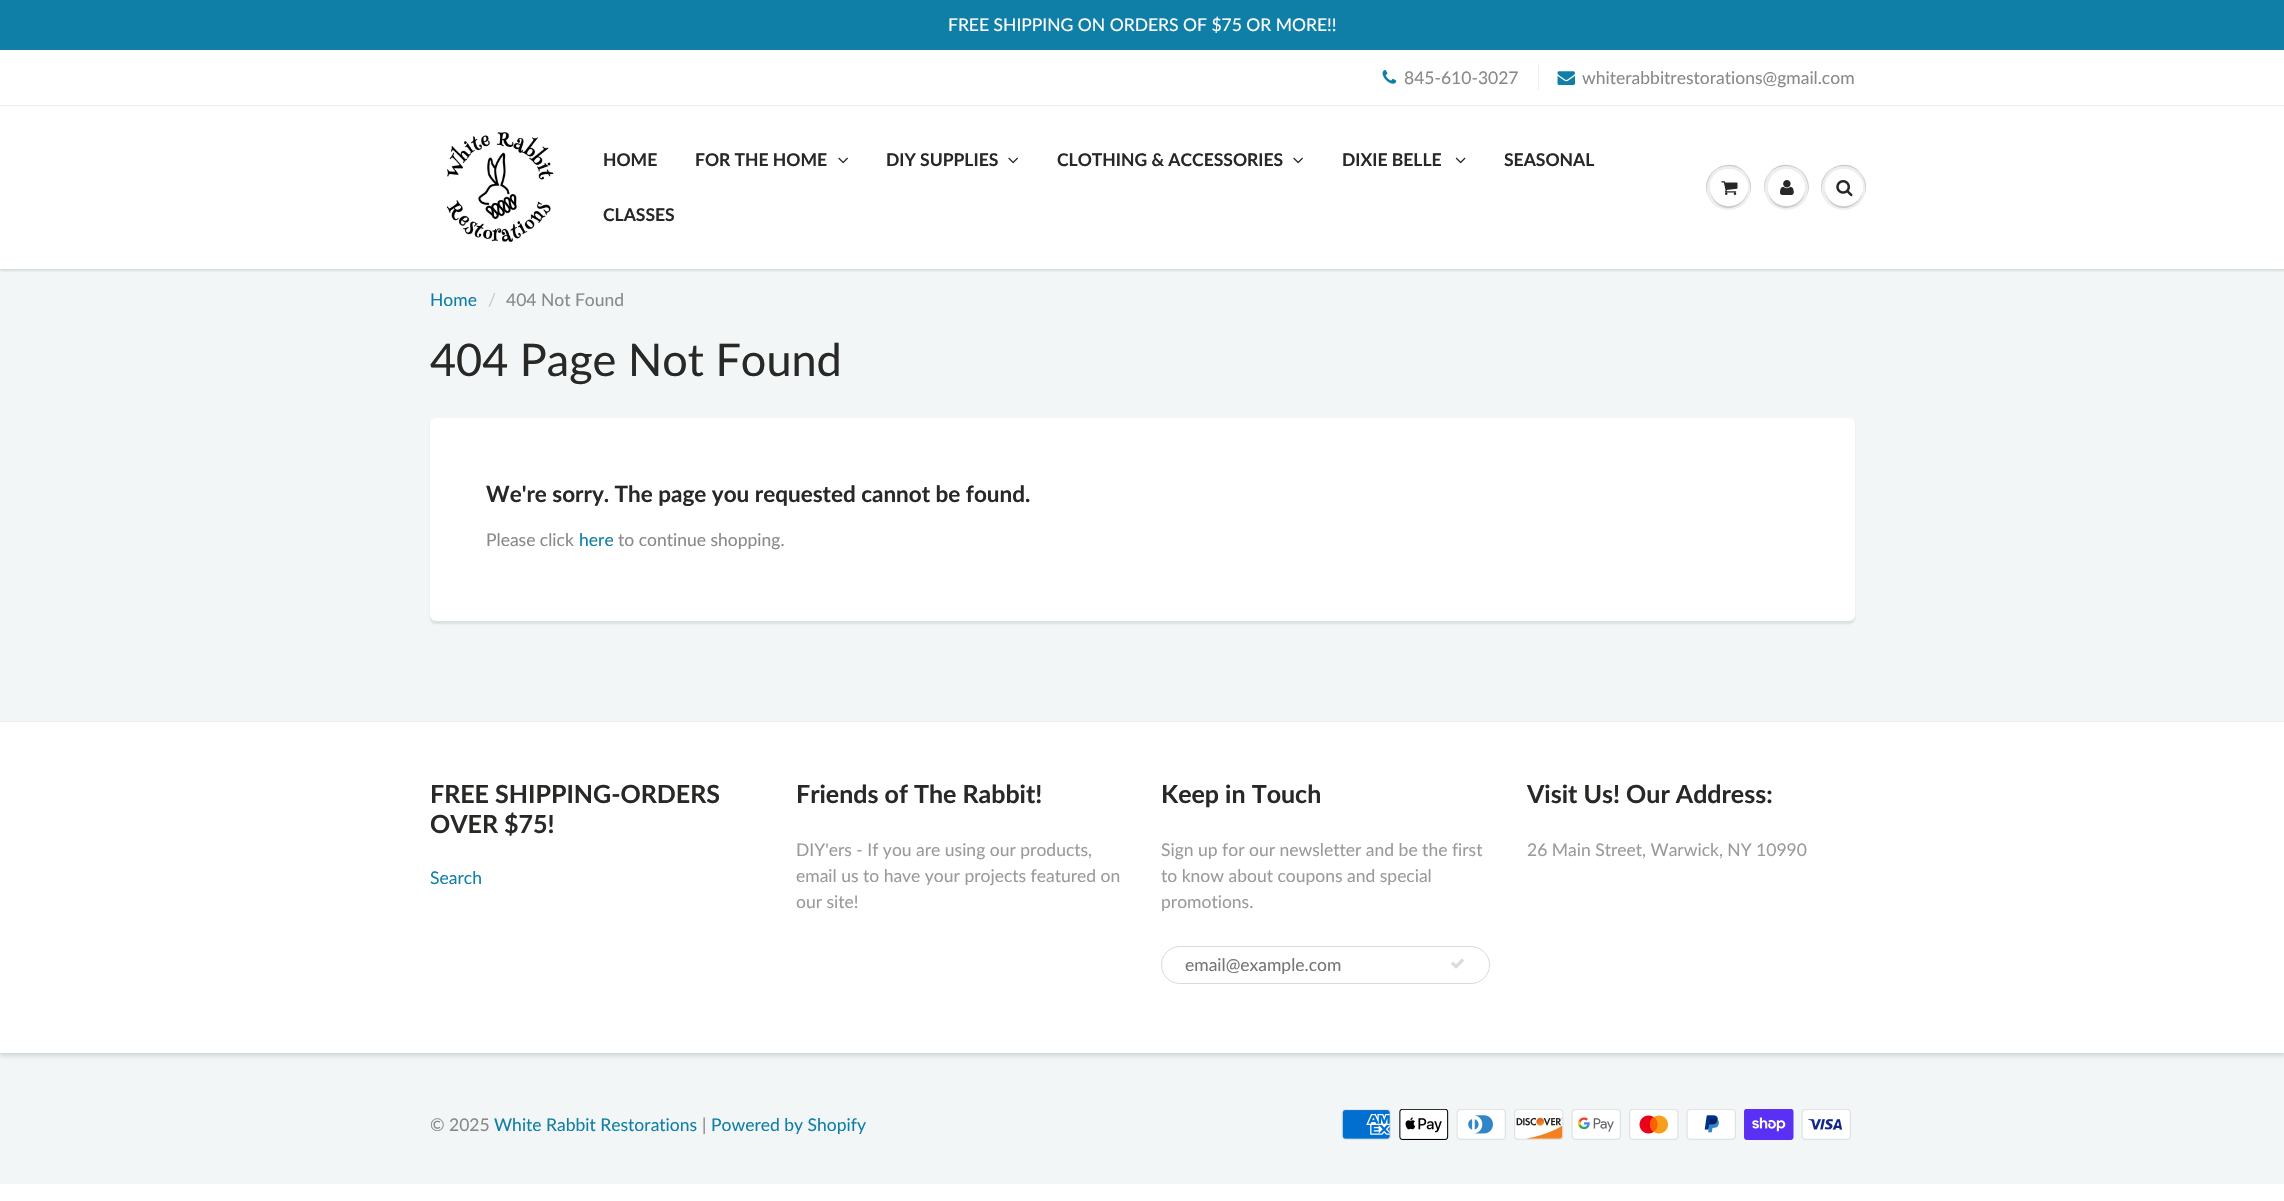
void draw(SkCanvas* canvas) {
	SkPaint paint;
	paint.setAntiAlias(true);
	auto svgPath = [&](const char* data, bool evenOdd = false) {
		SkPath result = *SkParsePath::FromSVGString(data);
		if (evenOdd) result.setFillType(SkPathFillType::kEvenOdd);
		return result;
	};
	canvas->clear(0xffffffff);
	paint.setColor(0xff107fa8);
	canvas->drawRect(SkRect::MakeXYWH(0, 0, 2284, 50), paint);
	SkFont f1(fontMgr->matchFamilyStyle("Lato", SkFontStyle::Normal()), 17.5);
	f1.setSubpixel(true);
	paint.setColor(0xffffffff);
	canvas->drawString("FREE SHIPPING ON ORDERS OF $75 OR MORE!!", 948, 31, f1, paint);
	canvas->drawImageRect(SkImages::DeferredFromEncodedData(SkData::MakeFromFileName("img1.png")), SkRect::MakeXYWH(1382, 70, 15, 14), SkSamplingOptions());
	paint.setColor(0xff898989);
	canvas->drawString("845-610-3027", 1404, 84, f1, paint);
	paint.setColor(0xffecefef);
	canvas->drawRect(SkRect::MakeXYWH(1538, 65, 1, 25), paint);
	canvas->drawImageRect(SkImages::DeferredFromEncodedData(SkData::MakeFromFileName("img2.png")), SkRect::MakeXYWH(1557, 71, 18, 14), SkSamplingOptions());
	paint.setColor(0xff898989);
	canvas->drawString("whiterabbitrestorations@gmail.com", 1582, 84, f1, paint);
	paint.setColor(0xfff3f6f6);
	canvas->drawRect(SkRect::MakeXYWH(0, 269, 2284, 452), paint);
	paint.setColor(0x1f0b191c);
	paint.setMaskFilter(SkMaskFilter::MakeBlur(kNormal_SkBlurStyle, 1));
	canvas->drawRect(SkRect::MakeXYWH(0, 108, 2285, 163), paint);
	paint.setMaskFilter(nullptr);
	paint.setColor(0xffffffff);
	canvas->drawRect(SkRect::MakeXYWH(0, 107, 2284, 162), paint);
	paint.setColor(0xffecefef);
	canvas->drawRect(SkRect::MakeXYWH(0, 105, 2284, 1), paint);
	canvas->drawImageRect(SkImages::DeferredFromEncodedData(SkData::MakeFromFileName("img3.png")), SkRect::MakeXYWH(446, 132, 108, 111), SkSamplingOptions());
	SkFont f2(fontMgr->matchFamilyStyle("Lato", SkFontStyle::Bold()), 17.5);
	f2.setSubpixel(true);
	paint.setColor(0xff282827);
	canvas->drawString("HOME", 603, 166, f2, paint);
	canvas->drawString("FOR THE HOME", 695, 166, f2, paint);
	canvas->drawImageRect(SkImages::DeferredFromEncodedData(SkData::MakeFromFileName("img4.png")), SkRect::MakeXYWH(838, 157, 10, 7), SkSamplingOptions());
	canvas->drawString("DIY SUPPLIES", 886, 166, f2, paint);
	canvas->drawImageRect(SkImages::DeferredFromEncodedData(SkData::MakeFromFileName("img4.png")), SkRect::MakeXYWH(1008, 157, 10, 7), SkSamplingOptions());
	canvas->drawString("CLOTHING & ACCESSORIES", 1057, 166, f2, paint);
	canvas->drawImageRect(SkImages::DeferredFromEncodedData(SkData::MakeFromFileName("img4.png")), SkRect::MakeXYWH(1293, 157, 10, 7), SkSamplingOptions());
	canvas->drawString("DIXIE BELLE", 1342, 166, f2, paint);
	canvas->drawImageRect(SkImages::DeferredFromEncodedData(SkData::MakeFromFileName("img5.png")), SkRect::MakeXYWH(1455, 157, 11, 7), SkSamplingOptions());
	canvas->drawString("SEASONAL", 1504, 166, f2, paint);
	canvas->drawString("CLASSES", 603, 221, f2, paint);
	paint.setColor(0xffedefef);
	canvas->drawCircle(1728.5, 187.5, 22.5, paint);
	paint.setColor(0xffc9cbcb);
	canvas->drawPath(svgPath("M1729 166C1745 166 1752 180 1750 193C1752 187 1751 180 1747 175C1732 152 1698 172 1708 196C1704 183 1711 166 1729 166Z"), paint);
	canvas->drawPath(svgPath("M1710 188C1710 193.5 1712 198.5 1715.5 202.5C1730 217 1754 200.5 1746.5 182C1752 200 1729.5 214.5 1715.5 201C1712.5 197.5 1710 193 1710 188Z"), paint);
	paint.setColor(0xffffffff);
	canvas->drawRoundRect(SkRect::MakeXYWH(1710, 169, 38, 37), 18.5, 18.5, paint);
	canvas->drawPath(svgPath("M1729 170C1744 170 1750 185 1746 196C1757 176 1726 158 1713 177C1710 181 1709 186 1710 191C1709 181 1716 170 1729 170Z"), paint);
	canvas->drawImageRect(SkImages::DeferredFromEncodedData(SkData::MakeFromFileName("img6.png")), SkRect::MakeXYWH(1721, 181, 17, 14), SkSamplingOptions());
	paint.setColor(0xffedefef);
	canvas->drawCircle(1786.5, 187.5, 22.5, paint);
	paint.setColor(0xffc9cbcb);
	canvas->drawPath(svgPath("M1786 166C1804 166 1811 183 1807 196C1817 172 1783 152 1768 175C1764 180 1763 187 1765 193C1763 180 1770 166 1786 166Z"), paint);
	canvas->drawPath(svgPath("M1768.5 193C1772.5 215 1805.5 212 1805 188C1804.5 209 1774.5 213 1768.5 193Z"), paint);
	paint.setColor(0xffffffff);
	canvas->drawCircle(1786.5, 187.5, 18.5, paint);
	canvas->drawPath(svgPath("M1786 170C1799.5 170 1805.5 181 1804.5 191C1808.5 171.5 1782.5 160.5 1771 177C1769 180.5 1768 184.5 1768 188C1768.5 179 1774.5 170 1786 170Z"), paint);
	canvas->drawImageRect(SkImages::DeferredFromEncodedData(SkData::MakeFromFileName("img7.png")), SkRect::MakeXYWH(1780, 180, 14, 15), SkSamplingOptions());
	paint.setColor(0xffedefef);
	canvas->drawCircle(1843.5, 187.5, 22.5, paint);
	paint.setColor(0xffc9cbcb);
	canvas->drawPath(svgPath("M1844 166C1860 166 1867 180 1865 193C1867 187 1866 180 1862 175C1847 152 1813 172 1823 196C1819 183 1826 166 1844 166Z"), paint);
	canvas->drawPath(svgPath("M1825 188C1825 193.5 1827 198.5 1830.5 202.5C1845 217 1869 200.5 1861.5 182C1867 200 1844.5 214.5 1830.5 201C1827.5 197.5 1825 193 1825 188Z"), paint);
	paint.setColor(0xffffffff);
	canvas->drawRoundRect(SkRect::MakeXYWH(1825, 169, 38, 37), 18.5, 18.5, paint);
	canvas->drawPath(svgPath("M1844 170C1859 170 1865 185 1861 196C1872 176 1841 158 1828 177C1825 181 1824 186 1825 191C1824 181 1831 170 1844 170Z"), paint);
	canvas->drawImageRect(SkImages::DeferredFromEncodedData(SkData::MakeFromFileName("img8.png")), SkRect::MakeXYWH(1836, 180, 17, 17), SkSamplingOptions());
	paint.setColor(0xff107fa8);
	canvas->drawString("Home", 430, 306, f1, paint);
	paint.setColor(0xffcccccc);
	canvas->drawString("/", 488, 306, f1, paint);
	paint.setColor(0xff898989);
	canvas->drawString("404 Not Found", 506, 306, f1, paint);
	SkFont f3(fontMgr->matchFamilyStyle("Lato", SkFontStyle::Normal()), 45);
	f3.setSubpixel(true);
	paint.setColor(0xff282827);
	canvas->drawString("404 Page Not Found", 430, 376, f3, paint);
	paint.setColor(0x1a0b191c);
	paint.setMaskFilter(SkMaskFilter::MakeBlur(kNormal_SkBlurStyle, 1));
	canvas->drawRoundRect(SkRect::MakeXYWH(430, 420, 1425, 204), 6, 6, paint);
	paint.setMaskFilter(nullptr);
	paint.setColor(0xffffffff);
	canvas->drawRoundRect(SkRect::MakeXYWH(430, 418, 1425, 203), 6, 6, paint);
	SkFont f4(fontMgr->matchFamilyStyle("Lato", SkFontStyle::Bold()), 22.5);
	f4.setSubpixel(true);
	paint.setColor(0xff282827);
	canvas->drawString("We're sorry. The page you requested cannot be found.", 486, 502, f4, paint);
	paint.setColor(0xff898989);
	canvas->drawString("Please click", 486, 546, f1, paint);
	paint.setColor(0xff107fa8);
	canvas->drawString("here", 579, 546, f1, paint);
	paint.setColor(0xff898989);
	canvas->drawString("to continue shopping.", 618, 546, f1, paint);
	paint.setColor(0xfff3f6f6);
	canvas->drawRect(SkRect::MakeXYWH(0, 1053, 2284, 131), paint);
	paint.setColor(0xffd1d7d7);
	paint.setMaskFilter(SkMaskFilter::MakeBlur(kNormal_SkBlurStyle, 2));
	canvas->drawRect(SkRect::MakeXYWH(0, 725, 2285, 331), paint);
	paint.setMaskFilter(nullptr);
	paint.setColor(0xffffffff);
	canvas->drawRect(SkRect::MakeXYWH(0, 722, 2284, 331), paint);
	paint.setColor(0xffecefef);
	canvas->drawRect(SkRect::MakeXYWH(0, 721, 2284, 1), paint);
	SkFont f5(fontMgr->matchFamilyStyle("Lato", SkFontStyle::Bold()), 25);
	f5.setSubpixel(true);
	paint.setColor(0xff282827);
	canvas->drawString("FREE SHIPPING-ORDERS", 430, 803, f5, paint);
	canvas->drawString("OVER $75!", 430, 833, f5, paint);
	paint.setColor(0xff107fa8);
	canvas->drawString("Search", 430, 884, f1, paint);
	paint.setColor(0xff282827);
	canvas->drawString("Friends of The Rabbit!", 796, 803, f5, paint);
	paint.setColor(0xff9a9a9a);
	canvas->drawString("DIY'ers - If you are using our products,", 796, 856, f1, paint);
	canvas->drawString("email us to have your projects featured on", 796, 882, f1, paint);
	canvas->drawString("our site!", 796, 908, f1, paint);
	paint.setColor(0xff282827);
	canvas->drawString("Keep in Touch", 1161, 803, f5, paint);
	paint.setColor(0xff9a9a9a);
	canvas->drawString("Sign up for our newsletter and be the first", 1161, 856, f1, paint);
	canvas->drawString("to know about coupons and special", 1161, 882, f1, paint);
	canvas->drawString("promotions.", 1161, 908, f1, paint);
	paint.setStroke(true);
	paint.setStrokeWidth(1);
	paint.setColor(0xffd7dbdb);
	canvas->drawRoundRect(SkRect::MakeXYWH(1161.5, 946.5, 328, 37), 18.5, 18.5, paint);
	paint.setStroke(false);
	paint.setColor(0xff757575);
	canvas->drawString("email@example.com", 1185, 971, f1, paint);
	canvas->drawImageRect(SkImages::DeferredFromEncodedData(SkData::MakeFromFileName("img9.png")), SkRect::MakeXYWH(1451, 958, 13, 11), SkSamplingOptions());
	paint.setColor(0xff282827);
	canvas->drawString("Visit Us! Our Address:", 1527, 803, f5, paint);
	paint.setColor(0xff9a9a9a);
	canvas->drawString("26 Main Street, Warwick, NY 10990", 1527, 856, f1, paint);
	paint.setColor(0xff898989);
	canvas->drawString("© 2025", 430, 1131, f1, paint);
	paint.setColor(0xff107fa8);
	canvas->drawString("White Rabbit Restorations", 494, 1131, f1, paint);
	paint.setColor(0xff898989);
	canvas->drawString("|", 702, 1131, f1, paint);
	paint.setColor(0xff107fa8);
	canvas->drawString("Powered by Shopify", 711, 1131, f1, paint);
	canvas->drawImageRect(SkImages::DeferredFromEncodedData(SkData::MakeFromFileName("img10.png")), SkRect::MakeXYWH(1341, 1109, 50, 31), SkSamplingOptions());
	canvas->drawImageRect(SkImages::DeferredFromEncodedData(SkData::MakeFromFileName("img11.png")), SkRect::MakeXYWH(1399, 1109, 50, 31), SkSamplingOptions());
	canvas->drawImageRect(SkImages::DeferredFromEncodedData(SkData::MakeFromFileName("img12.png")), SkRect::MakeXYWH(1456, 1109, 50, 31), SkSamplingOptions());
	canvas->drawImageRect(SkImages::DeferredFromEncodedData(SkData::MakeFromFileName("img13.png")), SkRect::MakeXYWH(1514, 1109, 50, 31), SkSamplingOptions());
	canvas->drawImageRect(SkImages::DeferredFromEncodedData(SkData::MakeFromFileName("img14.png")), SkRect::MakeXYWH(1571, 1109, 50, 31), SkSamplingOptions());
	canvas->drawImageRect(SkImages::DeferredFromEncodedData(SkData::MakeFromFileName("img15.png")), SkRect::MakeXYWH(1629, 1109, 50, 31), SkSamplingOptions());
	canvas->drawImageRect(SkImages::DeferredFromEncodedData(SkData::MakeFromFileName("img16.png")), SkRect::MakeXYWH(1686, 1109, 50, 31), SkSamplingOptions());
	canvas->drawImageRect(SkImages::DeferredFromEncodedData(SkData::MakeFromFileName("img17.png")), SkRect::MakeXYWH(1744, 1109, 50, 31), SkSamplingOptions());
	canvas->drawImageRect(SkImages::DeferredFromEncodedData(SkData::MakeFromFileName("img18.png")), SkRect::MakeXYWH(1801, 1109, 50, 31), SkSamplingOptions());
}
